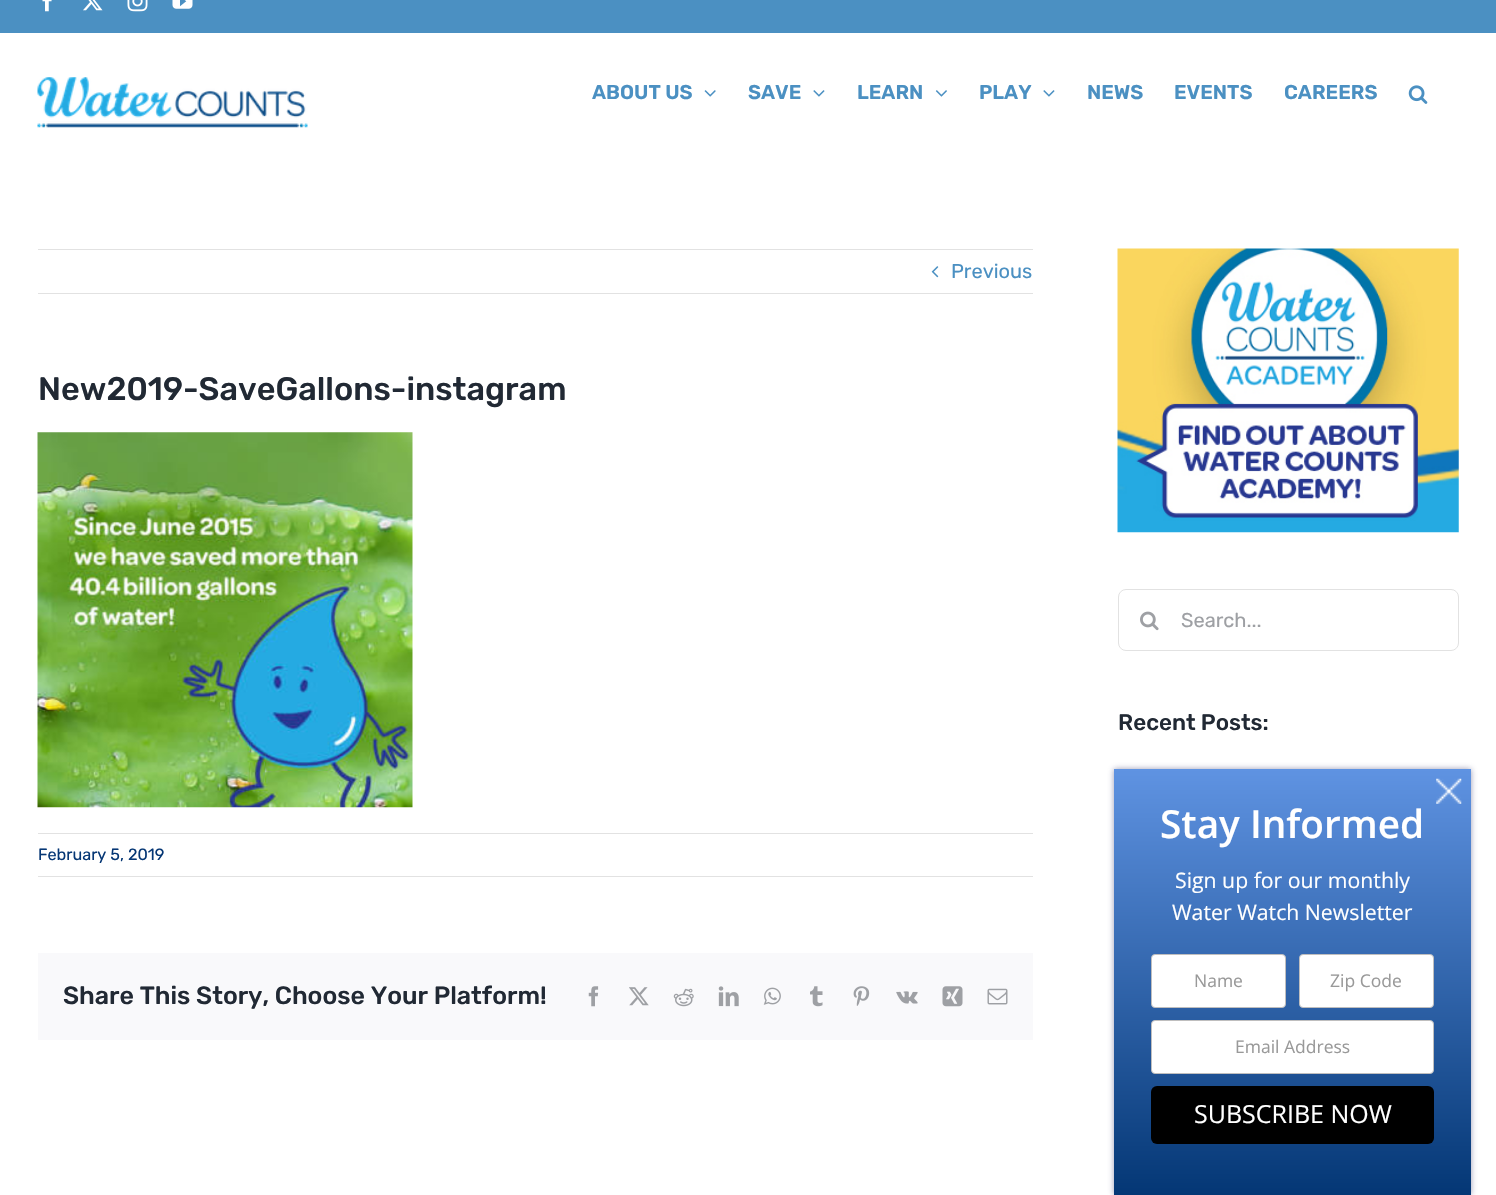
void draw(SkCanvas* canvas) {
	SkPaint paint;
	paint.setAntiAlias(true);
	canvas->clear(0xffffffff);
	paint.setColor(0xff4b90c2);
	canvas->drawRect(SkRect::MakeXYWH(0, 0, 1496, 33), paint);
	canvas->drawImageRect(SkImages::DeferredFromEncodedData(SkData::MakeFromFileName("img1.png")), SkRect::MakeXYWH(42, 0, 10, 12), SkSamplingOptions());
	canvas->drawImageRect(SkImages::DeferredFromEncodedData(SkData::MakeFromFileName("img2.png")), SkRect::MakeXYWH(83, 0, 20, 11), SkSamplingOptions());
	canvas->drawImageRect(SkImages::DeferredFromEncodedData(SkData::MakeFromFileName("img3.png")), SkRect::MakeXYWH(127, 0, 21, 12), SkSamplingOptions());
	canvas->drawImageRect(SkImages::DeferredFromEncodedData(SkData::MakeFromFileName("img4.png")), SkRect::MakeXYWH(172, 0, 21, 9), SkSamplingOptions());
	canvas->drawImageRect(SkImages::DeferredFromEncodedData(SkData::MakeFromFileName("img5.png")), SkRect::MakeXYWH(37, 77, 271, 51), SkSamplingOptions());
	SkFont f1(fontMgr->matchFamilyStyle("Rubik", SkFontStyle(600, SkFontStyle::kNormal_Width, SkFontStyle::kUpright_Slant)), 20);
	f1.setSubpixel(true);
	canvas->drawString("ABOUT US", 592, 99, f1, paint);
	canvas->drawImageRect(SkImages::DeferredFromEncodedData(SkData::MakeFromFileName("img6.png")), SkRect::MakeXYWH(704, 90, 12, 7), SkSamplingOptions());
	canvas->drawString("SAVE", 748, 99, f1, paint);
	canvas->drawImageRect(SkImages::DeferredFromEncodedData(SkData::MakeFromFileName("img7.png")), SkRect::MakeXYWH(813, 90, 12, 7), SkSamplingOptions());
	canvas->drawString("LEARN", 857, 99, f1, paint);
	canvas->drawImageRect(SkImages::DeferredFromEncodedData(SkData::MakeFromFileName("img8.png")), SkRect::MakeXYWH(935, 90, 12, 7), SkSamplingOptions());
	canvas->drawString("PLAY", 979, 99, f1, paint);
	canvas->drawImageRect(SkImages::DeferredFromEncodedData(SkData::MakeFromFileName("img7.png")), SkRect::MakeXYWH(1043, 90, 12, 7), SkSamplingOptions());
	canvas->drawString("NEWS", 1087, 99, f1, paint);
	canvas->drawString("EVENTS", 1174, 99, f1, paint);
	canvas->drawString("CAREERS", 1284, 99, f1, paint);
	canvas->drawImageRect(SkImages::DeferredFromEncodedData(SkData::MakeFromFileName("img9.png")), SkRect::MakeXYWH(1408, 85, 20, 19), SkSamplingOptions());
	paint.setColor(0xffe2e2e2);
	canvas->drawRect(SkRect::MakeXYWH(38, 249, 995, 1), paint);
	canvas->drawRect(SkRect::MakeXYWH(38, 293, 995, 1), paint);
	canvas->drawImageRect(SkImages::DeferredFromEncodedData(SkData::MakeFromFileName("img10.png")), SkRect::MakeXYWH(931, 266, 8, 12), SkSamplingOptions());
	SkFont f2(fontMgr->matchFamilyStyle("Rubik", SkFontStyle::Normal()), 20);
	f2.setSubpixel(true);
	paint.setColor(0xff4b90c2);
	canvas->drawString("Previous", 951, 278, f2, paint);
	SkFont f3(fontMgr->matchFamilyStyle("Rubik", SkFontStyle(500, SkFontStyle::kNormal_Width, SkFontStyle::kUpright_Slant)), 32.5);
	f3.setSubpixel(true);
	paint.setColor(0xff212934);
	canvas->drawString("New2019-SaveGallons-instagram", 38, 400, f3, paint);
	canvas->drawImageRect(SkImages::DeferredFromEncodedData(SkData::MakeFromFileName("img11.png")), SkRect::MakeXYWH(37, 432, 376, 376), SkSamplingOptions());
	paint.setColor(0xffe2e2e2);
	canvas->drawRect(SkRect::MakeXYWH(38, 833, 995, 1), paint);
	canvas->drawRect(SkRect::MakeXYWH(38, 876, 995, 1), paint);
	SkFont f4(fontMgr->matchFamilyStyle("Rubik", SkFontStyle::Normal()), 16.25);
	f4.setSubpixel(true);
	paint.setColor(0xff063775);
	canvas->drawString("February 5, 2019", 38, 860, f4, paint);
	paint.setColor(0xfff9f9fb);
	canvas->drawRect(SkRect::MakeXYWH(38, 953, 995, 87), paint);
	SkFont f5(fontMgr->matchFamilyStyle("Rubik", SkFontStyle(500, SkFontStyle::kNormal_Width, SkFontStyle::kUpright_Slant)), 25);
	f5.setSubpixel(true);
	paint.setColor(0xff212934);
	canvas->drawString("Share This Story, Choose Your Platform!", 63, 1004, f5, paint);
	canvas->drawImageRect(SkImages::DeferredFromEncodedData(SkData::MakeFromFileName("img12.png")), SkRect::MakeXYWH(588, 986, 11, 21), SkSamplingOptions());
	canvas->drawImageRect(SkImages::DeferredFromEncodedData(SkData::MakeFromFileName("img13.png")), SkRect::MakeXYWH(629, 987, 20, 19), SkSamplingOptions());
	canvas->drawImageRect(SkImages::DeferredFromEncodedData(SkData::MakeFromFileName("img14.png")), SkRect::MakeXYWH(673, 988, 21, 19), SkSamplingOptions());
	canvas->drawImageRect(SkImages::DeferredFromEncodedData(SkData::MakeFromFileName("img15.png")), SkRect::MakeXYWH(718, 986, 21, 21), SkSamplingOptions());
	canvas->drawImageRect(SkImages::DeferredFromEncodedData(SkData::MakeFromFileName("img16.png")), SkRect::MakeXYWH(763, 987, 18, 18), SkSamplingOptions());
	canvas->drawImageRect(SkImages::DeferredFromEncodedData(SkData::MakeFromFileName("img17.png")), SkRect::MakeXYWH(810, 986, 13, 21), SkSamplingOptions());
	canvas->drawImageRect(SkImages::DeferredFromEncodedData(SkData::MakeFromFileName("img18.png")), SkRect::MakeXYWH(853, 986, 17, 20), SkSamplingOptions());
	canvas->drawImageRect(SkImages::DeferredFromEncodedData(SkData::MakeFromFileName("img19.png")), SkRect::MakeXYWH(896, 991, 22, 13), SkSamplingOptions());
	canvas->drawImageRect(SkImages::DeferredFromEncodedData(SkData::MakeFromFileName("img20.png")), SkRect::MakeXYWH(942, 986, 21, 21), SkSamplingOptions());
	canvas->drawImageRect(SkImages::DeferredFromEncodedData(SkData::MakeFromFileName("img21.png")), SkRect::MakeXYWH(987, 988, 21, 17), SkSamplingOptions());
	canvas->drawImageRect(SkImages::DeferredFromEncodedData(SkData::MakeFromFileName("img22.png")), SkRect::MakeXYWH(1117, 248, 342, 285), SkSamplingOptions());
	paint.setStroke(true);
	paint.setStrokeWidth(1);
	paint.setColor(0xffe2e2e2);
	canvas->drawRoundRect(SkRect::MakeXYWH(1118.5, 589.5, 340, 61), 7.5, 7.5, paint);
	canvas->drawImageRect(SkImages::DeferredFromEncodedData(SkData::MakeFromFileName("img23.png")), SkRect::MakeXYWH(1140, 611, 19, 20), SkSamplingOptions());
	paint.setStroke(false);
	paint.setColor(0xff9ea0a4);
	canvas->drawString("Search...", 1181, 627, f2, paint);
	SkFont f6(fontMgr->matchFamilyStyle("Rubik", SkFontStyle(500, SkFontStyle::kNormal_Width, SkFontStyle::kUpright_Slant)), 22.5);
	f6.setSubpixel(true);
	paint.setColor(0xff212934);
	canvas->drawString("Recent Posts:", 1118, 730, f6, paint);
	paint.setColor(0x99565683);
	paint.setMaskFilter(SkMaskFilter::MakeBlur(kNormal_SkBlurStyle, 3));
	canvas->drawRect(SkRect::MakeXYWH(1114, 769, 357, 426), paint);
	paint.setMaskFilter(nullptr);
	{
		const SkColor colors[] = {0xff043775, 0xff5f93e2};
		const float stops[] = {0, 1};
		const SkPoint ends[] = {{1293, 1195}, {1293, 769}};
		paint.setShader(SkGradientShader::MakeLinear(ends, colors, stops, 2, SkTileMode::kClamp));
		paint.setAlpha(255);
	}
	canvas->drawRect(SkRect::MakeXYWH(1114, 769, 357, 426), paint);
	canvas->drawImageRect(SkImages::DeferredFromEncodedData(SkData::MakeFromFileName("img24.png")), SkRect::MakeXYWH(1436, 778, 26, 26), SkSamplingOptions());
	SkFont f7(fontMgr->matchFamilyStyle("Open Sans", SkFontStyle(600, SkFontStyle::kNormal_Width, SkFontStyle::kUpright_Slant)), 38.75);
	f7.setSubpixel(true);
	paint.setShader(nullptr);
	paint.setColor(0xffffffff);
	canvas->drawString("Stay Informed", 1160, 838, f7, paint);
	SkFont f8(fontMgr->matchFamilyStyle("Open Sans", SkFontStyle::Normal()), 21.25);
	f8.setSubpixel(true);
	canvas->drawString("Sign up for our monthly", 1175, 888, f8, paint);
	canvas->drawString("Water Watch Newsletter", 1172, 920, f8, paint);
	canvas->drawRoundRect(SkRect::MakeXYWH(1151.5, 954.5, 134, 53), 3.5, 3.5, paint);
	paint.setStroke(true);
	paint.setColor(0xffbfbebe);
	canvas->drawRoundRect(SkRect::MakeXYWH(1151.5, 954.5, 134, 53), 3.5, 3.5, paint);
	SkFont f9(fontMgr->matchFamilyStyle("Open Sans", SkFontStyle::Normal()), 17.5);
	f9.setSubpixel(true);
	paint.setStroke(false);
	paint.setColor(0xff999999);
	canvas->drawString("Name", 1194, 987, f9, paint);
	paint.setColor(0xffffffff);
	canvas->drawRoundRect(SkRect::MakeXYWH(1299.5, 954.5, 134, 53), 3.5, 3.5, paint);
	paint.setStroke(true);
	paint.setColor(0xffbfbebe);
	canvas->drawRoundRect(SkRect::MakeXYWH(1299.5, 954.5, 134, 53), 3.5, 3.5, paint);
	paint.setStroke(false);
	paint.setColor(0xff999999);
	canvas->drawString("Zip Code", 1330, 987, f9, paint);
	paint.setColor(0xffffffff);
	canvas->drawRoundRect(SkRect::MakeXYWH(1151.5, 1020.5, 282, 53), 3.5, 3.5, paint);
	paint.setStroke(true);
	paint.setColor(0xffbfbebe);
	canvas->drawRoundRect(SkRect::MakeXYWH(1151.5, 1020.5, 282, 53), 3.5, 3.5, paint);
	paint.setStroke(false);
	paint.setColor(0xff999999);
	canvas->drawString("Email Address", 1235, 1053, f9, paint);
	paint.setColor(0xff000000);
	canvas->drawRoundRect(SkRect::MakeXYWH(1151, 1086, 283, 58), 6, 6, paint);
	SkFont f10(fontMgr->matchFamilyStyle("Open Sans", SkFontStyle::Normal()), 25);
	f10.setSubpixel(true);
	paint.setColor(0xffffffff);
	canvas->drawString("SUBSCRIBE NOW", 1194, 1123, f10, paint);
}
